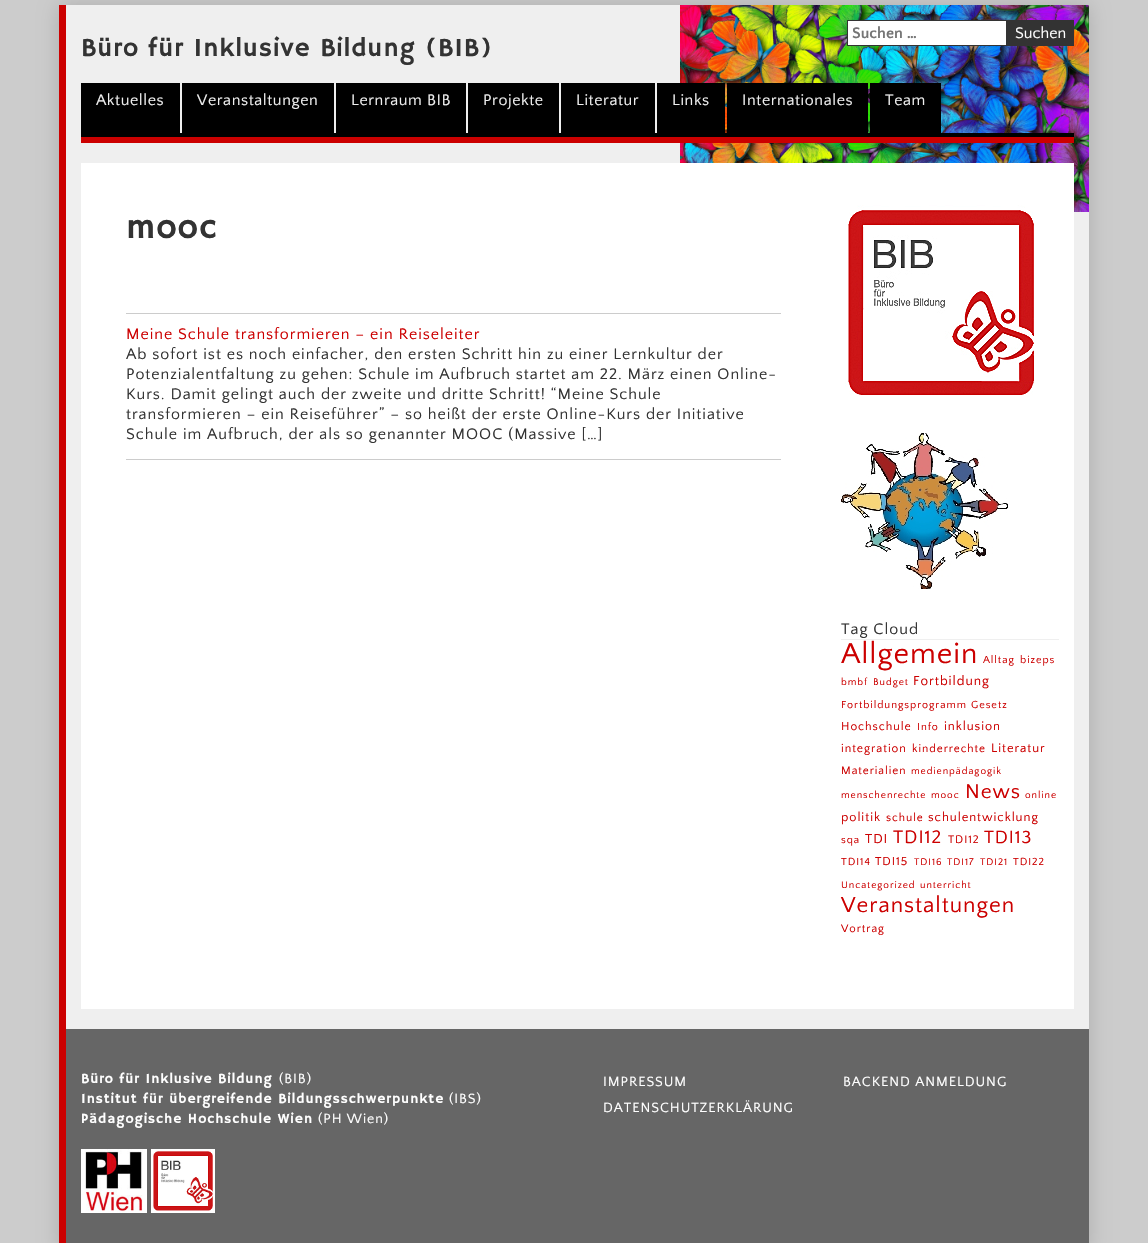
void draw(SkCanvas* canvas) {
	SkPaint paint;
	paint.setAntiAlias(true);
	auto spacedText = [&](const char* s, float x, float y, const SkFont& font, const SkPaint& ink, float letter, float word) {
		std::vector<SkGlyphID> glyphs(font.countText(s, strlen(s), SkTextEncoding::kUTF8));
		std::vector<float> xs(glyphs.size());
		font.textToGlyphs(s, strlen(s), SkTextEncoding::kUTF8, glyphs);
		font.getXPos(glyphs, xs, x);
		float extra = 0;
		for (size_t i = 0; i < glyphs.size(); i++) {
			xs[i] += extra;
			extra += letter + word * (glyphs[i] == font.unicharToGlyph(' '));
		}
		canvas->drawTextBlob(SkTextBlob::MakeFromPosHGlyphs(glyphs, xs, y, font), 0, 0, ink);
	};
	canvas->clear(0xffcccccc);
	paint.setColor(0xffadadad);
	paint.setMaskFilter(SkMaskFilter::MakeBlur(kNormal_SkBlurStyle, 10));
	canvas->drawRect(SkRect::MakeXYWH(59, 5, 1030, 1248), paint);
	paint.setMaskFilter(nullptr);
	paint.setColor(0xffefefef);
	canvas->drawRect(SkRect::MakeXYWH(66, 5, 1023, 1024), paint);
	canvas->drawImageRect(SkImages::DeferredFromEncodedData(SkData::MakeFromFileName("img1.png")), SkRect::MakeXYWH(680, 5, 409, 207), SkSamplingOptions());
	paint.setColor(0xffcc0000);
	canvas->drawRect(SkRect::MakeXYWH(59, 5, 7, 1238), paint);
	paint.setColor(0xffffffff);
	canvas->drawRect(SkRect::MakeXYWH(847.5, 20.5, 159, 25), paint);
	paint.setStroke(true);
	paint.setStrokeWidth(1);
	paint.setColor(0xff333333);
	canvas->drawRect(SkRect::MakeXYWH(847.5, 20.5, 159, 25), paint);
	SkFont f1(fontMgr->matchFamilyStyle("Quattrocento Sans", SkFontStyle::Bold()), 16);
	f1.setSubpixel(true);
	paint.setStroke(false);
	paint.setColor(0xff757575);
	canvas->drawString("Suchen …", 852, 38, f1, paint);
	paint.setColor(0xff333333);
	canvas->drawRect(SkRect::MakeXYWH(1007, 20, 67, 26), paint);
	SkFont f2(fontMgr->matchFamilyStyle("Quattrocento Sans", SkFontStyle::Normal()), 16);
	f2.setSubpixel(true);
	paint.setColor(0xffffffff);
	canvas->drawString("Suchen", 1015, 38, f2, paint);
	SkFont f3(fontMgr->matchFamilyStyle("Hammersmith One", SkFontStyle::Normal()), 26);
	f3.setSubpixel(true);
	paint.setColor(0xff333333);
	spacedText("Büro für Inklusive Bildung (BIB)", 81, 56, f3, paint, 0.95, 0);
	paint.setColor(0xffcc0000);
	canvas->drawRect(SkRect::MakeXYWH(81, 137, 993, 6), paint);
	paint.setColor(0xff000000);
	canvas->drawRect(SkRect::MakeXYWH(81, 83, 99, 54), paint);
	paint.setColor(0xffefefef);
	spacedText("Aktuelles", 96, 105, f2, paint, 0.6, 0);
	paint.setColor(0xff000000);
	canvas->drawRect(SkRect::MakeXYWH(182, 83, 152, 50), paint);
	paint.setColor(0xffefefef);
	spacedText("Veranstaltungen", 197, 105, f2, paint, 0.6, 0);
	paint.setColor(0xff000000);
	canvas->drawRect(SkRect::MakeXYWH(336, 83, 130, 50), paint);
	paint.setColor(0xffefefef);
	spacedText("Lernraum BIB", 351, 105, f2, paint, 0.6, 0);
	paint.setColor(0xff000000);
	canvas->drawRect(SkRect::MakeXYWH(468, 83, 91, 50), paint);
	paint.setColor(0xffefefef);
	spacedText("Projekte", 483, 105, f2, paint, 0.6, 0);
	paint.setColor(0xff000000);
	canvas->drawRect(SkRect::MakeXYWH(561, 83, 94, 50), paint);
	paint.setColor(0xffefefef);
	spacedText("Literatur", 576, 105, f2, paint, 0.6, 0);
	paint.setColor(0xff000000);
	canvas->drawRect(SkRect::MakeXYWH(657, 83, 68, 50), paint);
	paint.setColor(0xffefefef);
	spacedText("Links", 672, 105, f2, paint, 0.6, 0);
	paint.setColor(0xff000000);
	canvas->drawRect(SkRect::MakeXYWH(727, 83, 141, 50), paint);
	paint.setColor(0xffefefef);
	spacedText("Internationales", 742, 105, f2, paint, 0.6, 0);
	paint.setColor(0xff000000);
	canvas->drawRect(SkRect::MakeXYWH(870, 83, 71, 50), paint);
	paint.setColor(0xffefefef);
	spacedText("Team", 885, 105, f2, paint, 0.6, 0);
	paint.setColor(0xff000000);
	canvas->drawRect(SkRect::MakeXYWH(180, 133, 894, 4), paint);
	paint.setColor(0xffffffff);
	canvas->drawRect(SkRect::MakeXYWH(81, 163, 993, 846), paint);
	SkFont f4(fontMgr->matchFamilyStyle("Hammersmith One", SkFontStyle::Normal()), 35);
	f4.setSubpixel(true);
	paint.setColor(0xff333333);
	spacedText("mooc", 126, 238, f4, paint, 0.95, 0);
	paint.setColor(0xffcccccc);
	canvas->drawRect(SkRect::MakeXYWH(126, 313, 655, 1), paint);
	canvas->drawRect(SkRect::MakeXYWH(126, 459, 655, 1), paint);
	paint.setColor(0xffcc0000);
	spacedText("Meine Schule transformieren – ein Reiseleiter", 126, 339, f2, paint, 0.95, 0);
	paint.setColor(0xff333333);
	spacedText("Ab sofort ist es noch einfacher, den ersten Schritt hin zu einer Lernkultur der", 126, 359, f2, paint, 0.95, 0);
	spacedText("Potenzialentfaltung zu gehen: Schule im Aufbruch startet am 22. März einen Online-", 126, 379, f2, paint, 0.95, 0);
	spacedText("Kurs. Damit gelingt auch der zweite und dritte Schritt! “Meine Schule", 126, 399, f2, paint, 0.95, 0);
	spacedText("transformieren – ein Reiseführer” – so heißt der erste Online-Kurs der Initiative", 126, 419, f2, paint, 0.95, 0);
	spacedText("Schule im Aufbruch, der als so genannter MOOC (Massive […]", 126, 439, f2, paint, 0.95, 0);
	canvas->drawImageRect(SkImages::DeferredFromEncodedData(SkData::MakeFromFileName("img2.png")), SkRect::MakeXYWH(845, 205, 189, 190), SkSamplingOptions());
	canvas->drawImageRect(SkImages::DeferredFromEncodedData(SkData::MakeFromFileName("img3.png")), SkRect::MakeXYWH(841, 433, 167, 156), SkSamplingOptions());
	paint.setColor(0xffefefef);
	canvas->drawRect(SkRect::MakeXYWH(841, 639, 218, 1), paint);
	paint.setColor(0xff333333);
	spacedText("Tag Cloud", 841, 634, f2, paint, 0.95, 0);
	SkFont f5(fontMgr->matchFamilyStyle("Quattrocento Sans", SkFontStyle::Normal()), 30);
	f5.setSubpixel(true);
	paint.setColor(0xffcc0000);
	spacedText("Allgemein", 841, 663, f5, paint, 0.95, 0);
	SkFont f6(fontMgr->matchFamilyStyle("Quattrocento Sans", SkFontStyle::Normal()), 10.75);
	f6.setSubpixel(true);
	spacedText("Alltag", 983, 663, f6, paint, 0.95, 0);
	spacedText("bizeps", 1020, 663, f6, paint, 0.95, 0);
	SkFont f7(fontMgr->matchFamilyStyle("Quattrocento Sans", SkFontStyle::Normal()), 10);
	f7.setSubpixel(true);
	spacedText("bmbf", 841, 685, f7, paint, 0.95, 0);
	spacedText("Budget", 873, 685, f7, paint, 0.95, 0);
	SkFont f8(fontMgr->matchFamilyStyle("Quattrocento Sans", SkFontStyle::Normal()), 13.5);
	f8.setSubpixel(true);
	spacedText("Fortbildung", 913, 685, f8, paint, 0.95, 0);
	spacedText("Fortbildungsprogramm", 841, 708, f6, paint, 0.95, 0);
	spacedText("Gesetz", 971, 708, f6, paint, 0.95, 0);
	SkFont f9(fontMgr->matchFamilyStyle("Quattrocento Sans", SkFontStyle::Normal()), 12);
	f9.setSubpixel(true);
	spacedText("Hochschule", 841, 730, f9, paint, 0.95, 0);
	spacedText("Info", 917, 730, f6, paint, 0.95, 0);
	SkFont f10(fontMgr->matchFamilyStyle("Quattrocento Sans", SkFontStyle::Normal()), 12.75);
	f10.setSubpixel(true);
	spacedText("inklusion", 944, 730, f10, paint, 0.95, 0);
	spacedText("integration", 841, 752, f9, paint, 0.95, 0);
	SkFont f11(fontMgr->matchFamilyStyle("Quattrocento Sans", SkFontStyle::Normal()), 11.5);
	f11.setSubpixel(true);
	spacedText("kinderrechte", 912, 752, f11, paint, 0.95, 0);
	spacedText("Literatur", 991, 752, f10, paint, 0.95, 0);
	spacedText("Materialien", 841, 774, f11, paint, 0.95, 0);
	spacedText("medienpädagogik", 911, 774, f7, paint, 0.95, 0);
	spacedText("menschenrechte", 841, 798, f7, paint, 0.95, 0);
	spacedText("mooc", 931, 798, f7, paint, 0.95, 0);
	SkFont f12(fontMgr->matchFamilyStyle("Quattrocento Sans", SkFontStyle::Normal()), 21);
	f12.setSubpixel(true);
	spacedText("News", 965, 798, f12, paint, 0.95, 0);
	spacedText("online", 1025, 798, f7, paint, 0.95, 0);
	spacedText("politik", 841, 821, f10, paint, 0.95, 0);
	spacedText("schule", 886, 821, f11, paint, 0.95, 0);
	spacedText("schulentwicklung", 928, 821, f10, paint, 0.95, 0);
	spacedText("sqa", 841, 843, f6, paint, 0.95, 0);
	spacedText("TDI", 865, 843, f8, paint, 0.95, 0);
	SkFont f13(fontMgr->matchFamilyStyle("Quattrocento Sans", SkFontStyle::Normal()), 19);
	f13.setSubpixel(true);
	spacedText("TDI12", 893, 843, f13, paint, 0.95, 0);
	spacedText("TDI12", 948, 843, f11, paint, 0.95, 0);
	SkFont f14(fontMgr->matchFamilyStyle("Quattrocento Sans", SkFontStyle::Normal()), 18.5);
	f14.setSubpixel(true);
	spacedText("TDI13", 984, 843, f14, paint, 0.95, 0);
	spacedText("TDI14", 841, 865, f6, paint, 0.95, 0);
	spacedText("TDI15", 875, 865, f9, paint, 0.95, 0);
	spacedText("TDI16", 914, 865, f7, paint, 0.95, 0);
	spacedText("TDI17", 947, 865, f7, paint, 0.95, 0);
	spacedText("TDI21", 980, 865, f7, paint, 0.95, 0);
	spacedText("TDI22", 1013, 865, f6, paint, 0.95, 0);
	spacedText("Uncategorized", 841, 888, f7, paint, 0.95, 0);
	spacedText("unterricht", 920, 888, f7, paint, 0.95, 0);
	SkFont f15(fontMgr->matchFamilyStyle("Quattrocento Sans", SkFontStyle::Normal()), 22.75);
	f15.setSubpixel(true);
	spacedText("Veranstaltungen", 841, 912, f15, paint, 0.95, 0);
	spacedText("Vortrag", 841, 932, f11, paint, 0.95, 0);
	paint.setColor(0xff666666);
	canvas->drawRect(SkRect::MakeXYWH(66, 1029, 1023, 214), paint);
	SkFont f16(fontMgr->matchFamilyStyle("Hammersmith One", SkFontStyle::Normal()), 14);
	f16.setSubpixel(true);
	paint.setColor(0xffffffff);
	spacedText("Büro für Inklusive Bildung", 81, 1083, f16, paint, 0.95, 0);
	SkFont f17(fontMgr->matchFamilyStyle("Quattrocento Sans", SkFontStyle::Normal()), 14);
	f17.setSubpixel(true);
	spacedText("(BIB)", 279, 1083, f17, paint, 0.95, 0);
	spacedText("Institut für übergreifende Bildungsschwerpunkte", 81, 1103, f16, paint, 0.95, 0);
	spacedText("(IBS)", 449, 1103, f17, paint, 0.95, 0);
	spacedText("Pädagogische Hochschule Wien", 81, 1123, f16, paint, 0.95, 0);
	spacedText("(PH Wien)", 318, 1123, f17, paint, 0.95, 0);
	canvas->drawImageRect(SkImages::DeferredFromEncodedData(SkData::MakeFromFileName("img4.png")), SkRect::MakeXYWH(81, 1149, 66, 64), SkSamplingOptions());
	canvas->drawImageRect(SkImages::DeferredFromEncodedData(SkData::MakeFromFileName("img5.png")), SkRect::MakeXYWH(151, 1149, 64, 64), SkSamplingOptions());
	spacedText("IMPRESSUM", 603, 1086, f17, paint, 0.95, 0);
	spacedText("BACKEND ANMELDUNG", 843, 1086, f17, paint, 0.95, 0);
	spacedText("DATENSCHUTZERKLÄRUNG", 603, 1112, f17, paint, 0.95, 0);
}
